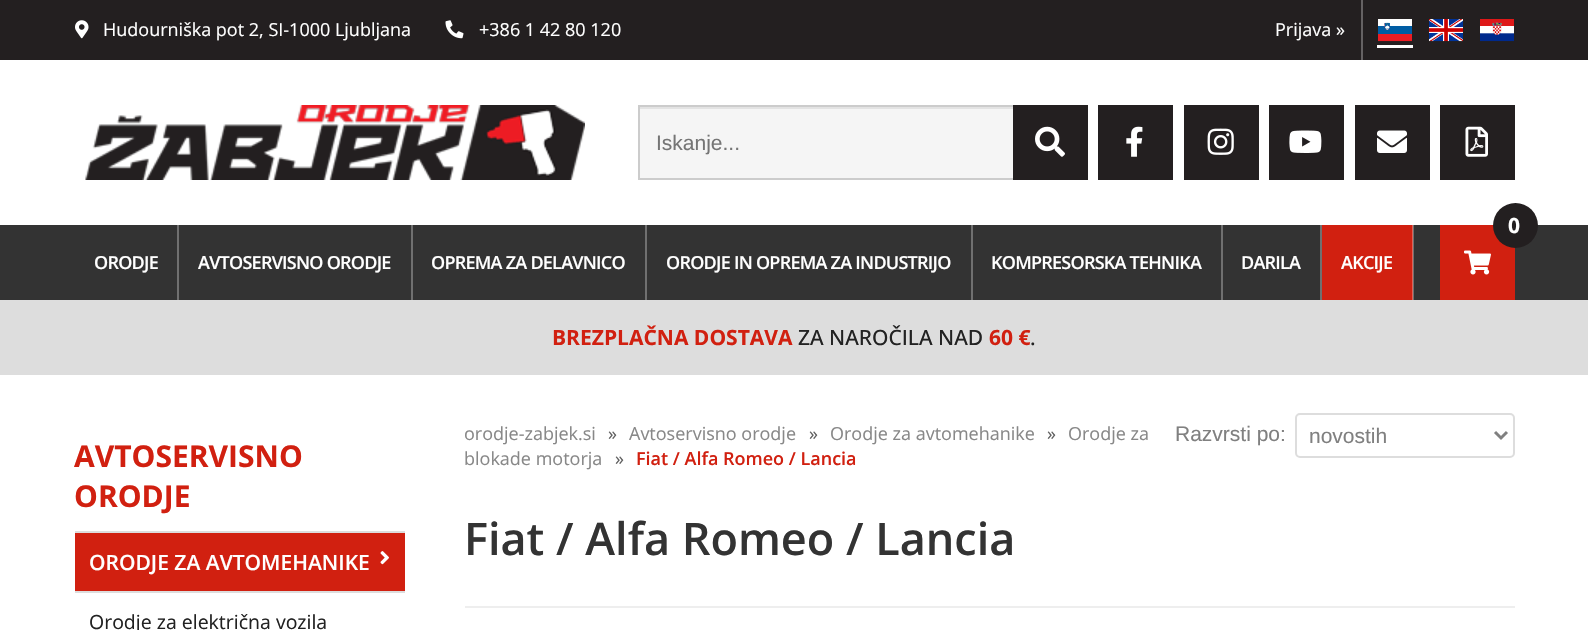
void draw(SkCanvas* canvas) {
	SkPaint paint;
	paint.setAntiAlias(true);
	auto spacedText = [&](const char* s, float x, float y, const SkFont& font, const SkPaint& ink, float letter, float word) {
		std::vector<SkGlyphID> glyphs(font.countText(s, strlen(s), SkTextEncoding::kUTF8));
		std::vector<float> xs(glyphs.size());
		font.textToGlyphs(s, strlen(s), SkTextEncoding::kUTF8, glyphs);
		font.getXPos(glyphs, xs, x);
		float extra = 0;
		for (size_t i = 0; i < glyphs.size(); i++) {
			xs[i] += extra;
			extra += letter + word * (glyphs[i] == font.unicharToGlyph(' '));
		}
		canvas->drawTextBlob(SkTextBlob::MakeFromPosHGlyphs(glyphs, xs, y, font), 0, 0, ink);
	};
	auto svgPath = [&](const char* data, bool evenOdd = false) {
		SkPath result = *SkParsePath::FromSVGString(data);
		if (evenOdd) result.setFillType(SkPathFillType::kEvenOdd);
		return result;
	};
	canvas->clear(0xffffffff);
	paint.setColor(0xff231f20);
	canvas->drawRect(SkRect::MakeXYWH(0, 0, 1588, 60), paint);
	canvas->drawImageRect(SkImages::DeferredFromEncodedData(SkData::MakeFromFileName("img1.png")), SkRect::MakeXYWH(75, 20, 14, 19), SkSamplingOptions());
	SkFont f1(fontMgr->matchFamilyStyle("Open Sans", SkFontStyle::Normal()), 18);
	f1.setSubpixel(true);
	paint.setColor(0xffffffff);
	canvas->drawString("Hudourniška pot 2, SI-1000 Ljubljana", 103, 36, f1, paint);
	canvas->drawImageRect(SkImages::DeferredFromEncodedData(SkData::MakeFromFileName("img2.png")), SkRect::MakeXYWH(445, 20, 19, 19), SkSamplingOptions());
	canvas->drawString("+386 1 42 80 120", 479, 36, f1, paint);
	canvas->drawString("Prijava »", 1275, 36, f1, paint);
	paint.setColor(0xff656263);
	canvas->drawRect(SkRect::MakeXYWH(1361, 0, 2, 60), paint);
	canvas->drawImageRect(SkImages::DeferredFromEncodedData(SkData::MakeFromFileName("img3.png")), SkRect::MakeXYWH(1378, 19, 34, 23), SkSamplingOptions());
	paint.setColor(0xffffffff);
	canvas->drawRect(SkRect::MakeXYWH(1377, 45, 36, 3), paint);
	canvas->drawImageRect(SkImages::DeferredFromEncodedData(SkData::MakeFromFileName("img4.png")), SkRect::MakeXYWH(1429, 19, 34, 23), SkSamplingOptions());
	canvas->drawImageRect(SkImages::DeferredFromEncodedData(SkData::MakeFromFileName("img5.png")), SkRect::MakeXYWH(1480, 19, 34, 23), SkSamplingOptions());
	canvas->drawImageRect(SkImages::DeferredFromEncodedData(SkData::MakeFromFileName("img6.png")), SkRect::MakeXYWH(85, 105, 500, 75), SkSamplingOptions());
	paint.setColor(0xfff5f5f5);
	canvas->drawRect(SkRect::MakeXYWH(640, 109, 373, 69), paint);
	paint.setColor(0xffe3e3e3);
	canvas->drawRect(SkRect::MakeXYWH(639, 107, 374, 2), paint);
	paint.setStroke(true);
	paint.setStrokeWidth(2);
	paint.setColor(0xffcccccc);
	canvas->drawRect(SkRect::MakeXYWH(639, 106, 448, 73), paint);
	SkFont f2(fontMgr->matchFamilyStyle("Liberation Sans", SkFontStyle::Normal()), 21);
	f2.setSubpixel(true);
	paint.setStroke(false);
	paint.setColor(0xff757575);
	canvas->drawString("Iskanje...", 656, 150, f2, paint);
	paint.setColor(0xff231f20);
	canvas->drawRect(SkRect::MakeXYWH(1013, 105, 75, 75), paint);
	canvas->drawImageRect(SkImages::DeferredFromEncodedData(SkData::MakeFromFileName("img7.png")), SkRect::MakeXYWH(1035, 126, 30, 31), SkSamplingOptions());
	canvas->drawRect(SkRect::MakeXYWH(1098, 105, 75, 75), paint);
	canvas->drawImageRect(SkImages::DeferredFromEncodedData(SkData::MakeFromFileName("img8.png")), SkRect::MakeXYWH(1126, 126, 17, 31), SkSamplingOptions());
	canvas->drawRect(SkRect::MakeXYWH(1184, 105, 75, 75), paint);
	canvas->drawImageRect(SkImages::DeferredFromEncodedData(SkData::MakeFromFileName("img9.png")), SkRect::MakeXYWH(1207, 128, 27, 27), SkSamplingOptions());
	canvas->drawRect(SkRect::MakeXYWH(1269, 105, 75, 75), paint);
	canvas->drawImageRect(SkImages::DeferredFromEncodedData(SkData::MakeFromFileName("img10.png")), SkRect::MakeXYWH(1289, 130, 33, 23), SkSamplingOptions());
	canvas->drawRect(SkRect::MakeXYWH(1355, 105, 75, 75), paint);
	canvas->drawImageRect(SkImages::DeferredFromEncodedData(SkData::MakeFromFileName("img11.png")), SkRect::MakeXYWH(1377, 130, 30, 23), SkSamplingOptions());
	canvas->drawRect(SkRect::MakeXYWH(1440, 105, 75, 75), paint);
	canvas->drawImageRect(SkImages::DeferredFromEncodedData(SkData::MakeFromFileName("img12.png")), SkRect::MakeXYWH(1465, 126, 23, 31), SkSamplingOptions());
	paint.setColor(0xff333333);
	canvas->drawRect(SkRect::MakeXYWH(0, 225, 1588, 75), paint);
	paint.setColor(0xff707070);
	canvas->drawRect(SkRect::MakeXYWH(1413, 225, 1, 75), paint);
	paint.setColor(0xffd12010);
	canvas->drawRect(SkRect::MakeXYWH(1440, 225, 75, 75), paint);
	paint.setColor(0xff231f20);
	canvas->drawCircle(1515.5, 225.5, 22.5, paint);
	SkFont f3(fontMgr->matchFamilyStyle("Open Sans", SkFontStyle::Bold()), 21);
	f3.setSubpixel(true);
	paint.setColor(0xffffffff);
	canvas->drawString("0", 1508, 233, f3, paint);
	canvas->drawImageRect(SkImages::DeferredFromEncodedData(SkData::MakeFromFileName("img13.png")), SkRect::MakeXYWH(1464, 250, 27, 25), SkSamplingOptions());
	paint.setColor(0xff707070);
	canvas->drawRect(SkRect::MakeXYWH(177, 225, 2, 75), paint);
	SkFont f4(fontMgr->matchFamilyStyle("Open Sans", SkFontStyle(600, SkFontStyle::kNormal_Width, SkFontStyle::kUpright_Slant)), 18);
	f4.setSubpixel(true);
	paint.setColor(0xffffffff);
	spacedText("ORODJE", 94, 269, f4, paint, -0.75, 0);
	paint.setColor(0xff707070);
	canvas->drawRect(SkRect::MakeXYWH(411, 225, 2, 75), paint);
	paint.setColor(0xffffffff);
	spacedText("AVTOSERVISNO ORODJE", 198, 269, f4, paint, -0.75, 0);
	paint.setColor(0xff707070);
	canvas->drawRect(SkRect::MakeXYWH(645, 225, 2, 75), paint);
	paint.setColor(0xffffffff);
	spacedText("OPREMA ZA DELAVNICO", 431, 269, f4, paint, -0.75, 0);
	paint.setColor(0xff707070);
	canvas->drawRect(SkRect::MakeXYWH(971, 225, 2, 75), paint);
	paint.setColor(0xffffffff);
	spacedText("ORODJE IN OPREMA ZA INDUSTRIJO", 666, 269, f4, paint, -0.75, 0);
	paint.setColor(0xff707070);
	canvas->drawRect(SkRect::MakeXYWH(1221, 225, 2, 75), paint);
	paint.setColor(0xffffffff);
	spacedText("KOMPRESORSKA TEHNIKA", 991, 269, f4, paint, -0.75, 0);
	paint.setColor(0xff707070);
	canvas->drawRect(SkRect::MakeXYWH(1320, 225, 2, 75), paint);
	paint.setColor(0xffffffff);
	spacedText("DARILA", 1241, 269, f4, paint, -0.75, 0);
	paint.setColor(0xffd12010);
	canvas->drawRect(SkRect::MakeXYWH(1322, 225, 90, 75), paint);
	paint.setColor(0xffdf6358);
	canvas->drawRect(SkRect::MakeXYWH(1412, 225, 1, 75), paint);
	paint.setColor(0xffffffff);
	spacedText("AKCIJE", 1341, 269, f4, paint, -0.75, 0);
	paint.setColor(0xffdddddd);
	canvas->drawRect(SkRect::MakeXYWH(0, 300, 1588, 75), paint);
	paint.setColor(0xffd12010);
	canvas->drawString("BREZPLAČNA DOSTAVA", 552, 345, f3, paint);
	SkFont f5(fontMgr->matchFamilyStyle("Open Sans", SkFontStyle(500, SkFontStyle::kNormal_Width, SkFontStyle::kUpright_Slant)), 21);
	f5.setSubpixel(true);
	paint.setColor(0xff222222);
	canvas->drawString("ZA NAROČILA NAD", 798, 345, f5, paint);
	paint.setColor(0xffd12010);
	canvas->drawString("60 €", 989, 345, f3, paint);
	paint.setColor(0xff222222);
	canvas->drawString(".", 1030, 345, f5, paint);
	SkFont f6(fontMgr->matchFamilyStyle("Open Sans", SkFontStyle::Bold()), 30);
	f6.setSubpixel(true);
	paint.setColor(0xffd12010);
	canvas->drawString("AVTOSERVISNO", 74, 467, f6, paint);
	canvas->drawString("ORODJE", 74, 507, f6, paint);
	paint.setColor(0xffdddddd);
	canvas->drawRect(SkRect::MakeXYWH(75, 531, 330, 2), paint);
	paint.setColor(0xffd12010);
	canvas->drawRect(SkRect::MakeXYWH(75, 533, 330, 58), paint);
	SkFont f7(fontMgr->matchFamilyStyle("Open Sans", SkFontStyle(600, SkFontStyle::kNormal_Width, SkFontStyle::kUpright_Slant)), 21);
	f7.setSubpixel(true);
	paint.setColor(0xffffffff);
	canvas->drawString("ORODJE ZA AVTOMEHANIKE", 89, 570, f7, paint);
	canvas->drawImageRect(SkImages::DeferredFromEncodedData(SkData::MakeFromFileName("img14.png")), SkRect::MakeXYWH(380, 551, 9, 14), SkSamplingOptions());
	paint.setColor(0xffdddddd);
	canvas->drawRect(SkRect::MakeXYWH(75, 591, 330, 2), paint);
	SkFont f8(fontMgr->matchFamilyStyle("Open Sans", SkFontStyle::Normal()), 19.5);
	f8.setSubpixel(true);
	paint.setColor(0xff222222);
	canvas->drawString("Orodje za električna vozila", 89, 629, f8, paint);
	paint.setColor(0xff888888);
	canvas->drawString("orodje-zabjek.si", 464, 440, f1, paint);
	paint.setColor(0xff606060);
	canvas->drawString("»", 608, 440, f1, paint);
	paint.setColor(0xff888888);
	canvas->drawString("Avtoservisno orodje", 629, 440, f1, paint);
	paint.setColor(0xff606060);
	canvas->drawString("»", 809, 440, f1, paint);
	paint.setColor(0xff888888);
	canvas->drawString("Orodje za avtomehanike", 830, 440, f1, paint);
	paint.setColor(0xff606060);
	canvas->drawString("»", 1047, 440, f1, paint);
	paint.setColor(0xff888888);
	canvas->drawString("Orodje za", 1068, 440, f1, paint);
	paint.setColor(0xff808080);
	canvas->drawString("Razvrsti po:", 1175, 441, f2, paint);
	paint.setStroke(true);
	paint.setColor(0xffdddddd);
	canvas->drawRoundRect(SkRect::MakeXYWH(1296, 414, 218, 43), 4, 4, paint);
	paint.setStrokeWidth(3);
	paint.setColor(0xff808080);
	canvas->drawPath(svgPath("M1495 432L1501 438L1507 432"), paint);
	paint.setStroke(false);
	canvas->drawString("novostih", 1309, 443, f2, paint);
	paint.setColor(0xff888888);
	canvas->drawString("blokade motorja", 464, 465, f1, paint);
	paint.setColor(0xff606060);
	canvas->drawString("»", 615, 465, f1, paint);
	paint.setColor(0xffd12010);
	canvas->drawString("Fiat / Alfa Romeo / Lancia", 636, 465, f4, paint);
	paint.setColor(0xffeeeeee);
	canvas->drawRect(SkRect::MakeXYWH(465, 606, 1050, 2), paint);
	SkFont f9(fontMgr->matchFamilyStyle("Open Sans", SkFontStyle(600, SkFontStyle::kNormal_Width, SkFontStyle::kUpright_Slant)), 45);
	f9.setSubpixel(true);
	paint.setColor(0xff333333);
	canvas->drawString("Fiat / Alfa Romeo / Lancia", 464, 555, f9, paint);
}
